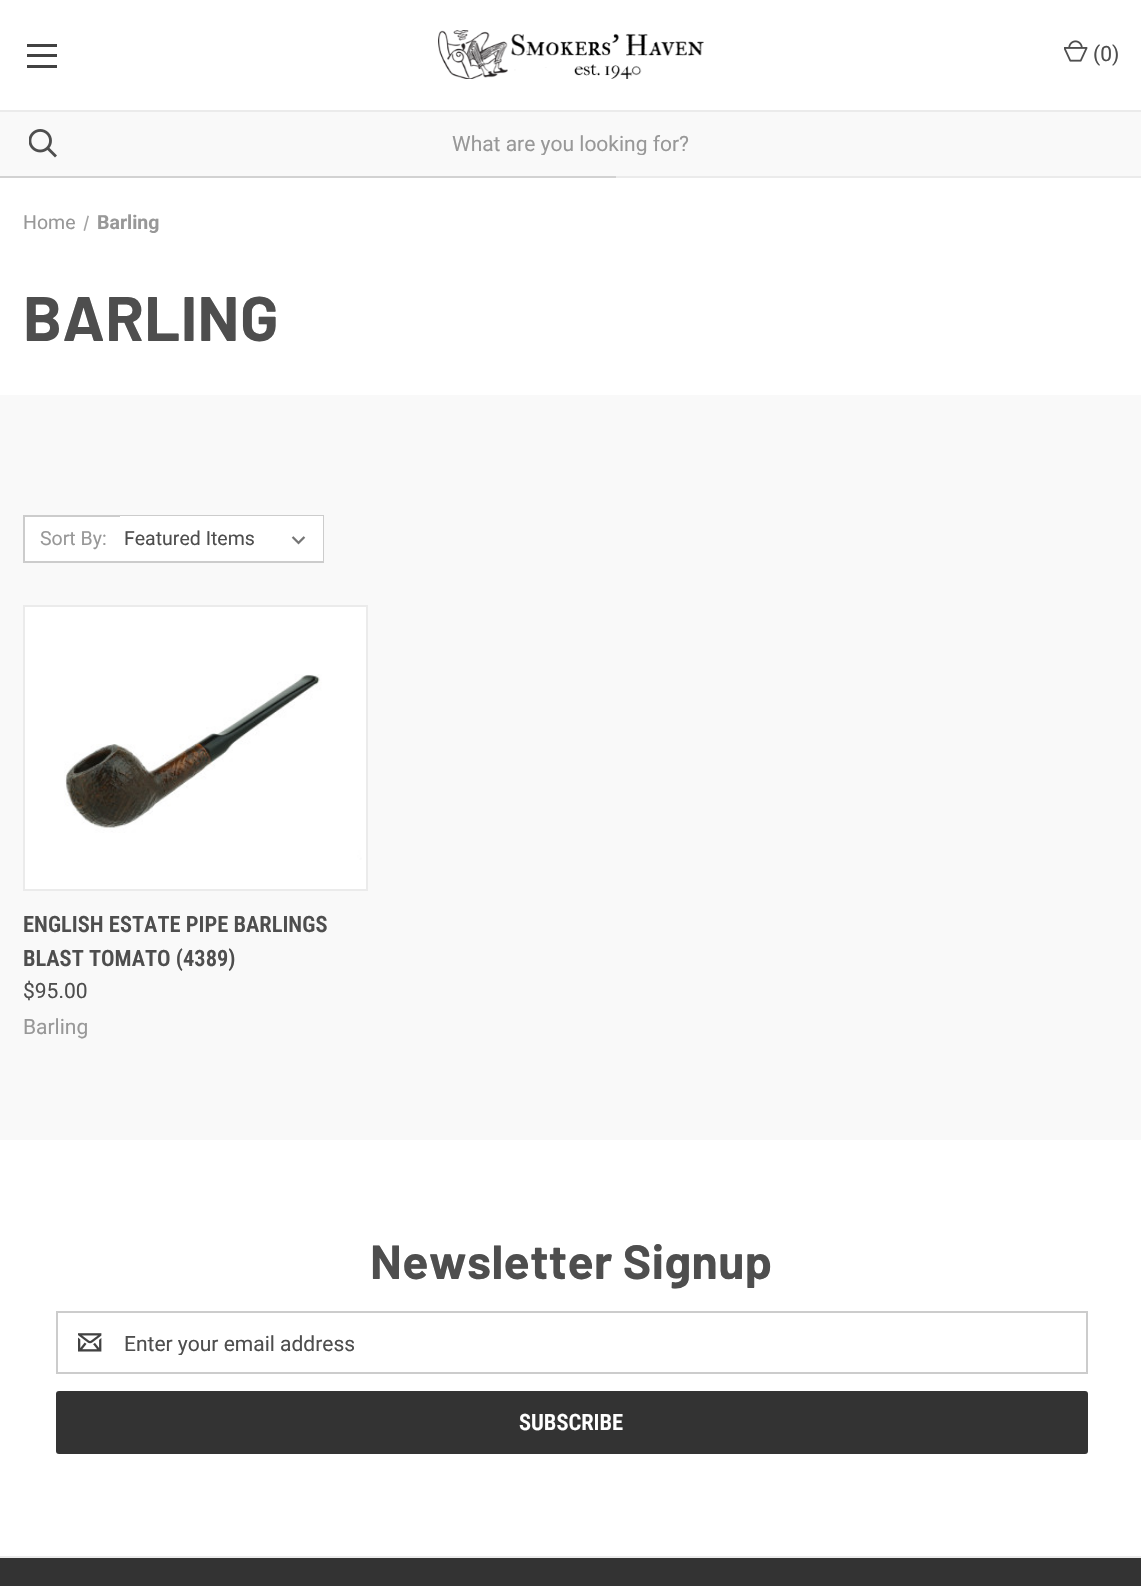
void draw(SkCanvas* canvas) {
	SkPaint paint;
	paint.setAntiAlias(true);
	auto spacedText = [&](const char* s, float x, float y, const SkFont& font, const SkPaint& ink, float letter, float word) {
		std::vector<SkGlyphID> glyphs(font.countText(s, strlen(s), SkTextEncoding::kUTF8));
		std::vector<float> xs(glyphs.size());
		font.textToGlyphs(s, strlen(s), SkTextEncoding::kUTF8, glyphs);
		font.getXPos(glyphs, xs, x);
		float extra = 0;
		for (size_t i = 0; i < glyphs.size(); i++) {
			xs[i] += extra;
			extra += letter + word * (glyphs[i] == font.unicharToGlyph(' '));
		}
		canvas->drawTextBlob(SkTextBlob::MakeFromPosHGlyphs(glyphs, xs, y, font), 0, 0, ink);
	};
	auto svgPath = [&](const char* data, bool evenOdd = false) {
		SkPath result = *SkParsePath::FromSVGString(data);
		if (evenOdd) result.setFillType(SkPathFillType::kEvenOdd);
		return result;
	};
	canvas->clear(0xffffffff);
	paint.setColor(0xffebebeb);
	canvas->drawRect(SkRect::MakeXYWH(616, 176, 525, 2), paint);
	paint.setColor(0xff424242);
	canvas->drawRect(SkRect::MakeXYWH(27, 54, 30, 3), paint);
	canvas->drawRect(SkRect::MakeXYWH(27, 44, 30, 3), paint);
	canvas->drawRect(SkRect::MakeXYWH(27, 65, 30, 3), paint);
	canvas->drawImageRect(SkImages::DeferredFromEncodedData(SkData::MakeFromFileName("img1.png")), SkRect::MakeXYWH(438, 30, 266, 49), SkSamplingOptions());
	canvas->drawImageRect(SkImages::DeferredFromEncodedData(SkData::MakeFromFileName("img2.png")), SkRect::MakeXYWH(1064, 40, 24, 22), SkSamplingOptions());
	SkFont f1(fontMgr->matchFamilyStyle("Roboto", SkFontStyle::Normal()), 21);
	f1.setSubpixel(true);
	paint.setColor(0xff4e4e4e);
	canvas->drawString("(0)", 1093, 61, f1, paint);
	paint.setColor(0xfff9f9f9);
	canvas->drawRect(SkRect::MakeXYWH(0, 112, 1141, 64), paint);
	canvas->drawImageRect(SkImages::DeferredFromEncodedData(SkData::MakeFromFileName("img3.png")), SkRect::MakeXYWH(29, 129, 28, 29), SkSamplingOptions());
	paint.setColor(0xffebebeb);
	canvas->drawRect(SkRect::MakeXYWH(0, 110, 1141, 2), paint);
	canvas->save();
	canvas->clipRect(SkRect::MakeXYWH(45, 131, 1052, 24));
	paint.setColor(0xff989898);
	canvas->drawString("What are you looking for?", 452, 151, f1, paint);
	canvas->restore();
	paint.setColor(0xffd2d2d2);
	canvas->drawRect(SkRect::MakeXYWH(0, 176, 616, 2), paint);
	SkFont f2(fontMgr->matchFamilyStyle("Roboto", SkFontStyle::Normal()), 19.5);
	f2.setSubpixel(true);
	paint.setColor(0xff989898);
	canvas->drawString("Home", 23, 229, f2, paint);
	paint.setColor(0xffa3a3a3);
	canvas->drawPath(svgPath("M87.5 215.5L89 216L85 231L83.5 230.5Z"), paint);
	SkFont f3(fontMgr->matchFamilyStyle("Roboto", SkFontStyle::Bold()), 19.5);
	f3.setSubpixel(true);
	paint.setColor(0xff989898);
	canvas->drawString("Barling", 97, 229, f3, paint);
	SkFont f4(fontMgr->matchFamilyStyle("Barlow", SkFontStyle::Bold()), 63);
	f4.setSubpixel(true);
	paint.setColor(0xff4e4e4e);
	spacedText("BARLING", 23, 341, f4, paint, 0.4, 0);
	paint.setColor(0xfff9f9f9);
	canvas->drawRect(SkRect::MakeXYWH(0, 395, 1141, 745), paint);
	paint.setColor(0xffffffff);
	canvas->drawRect(SkRect::MakeXYWH(25, 517, 95, 44), paint);
	paint.setStroke(true);
	paint.setStrokeWidth(2);
	paint.setColor(0xffcccccc);
	canvas->drawRect(SkRect::MakeXYWH(24, 516, 299, 46), paint);
	paint.setStroke(false);
	paint.setColor(0xff989898);
	canvas->drawString("Sort By:", 40, 545, f2, paint);
	paint.setColor(0xffffffff);
	canvas->drawRect(SkRect::MakeXYWH(120, 516, 203, 45), paint);
	canvas->drawImageRect(SkImages::DeferredFromEncodedData(SkData::MakeFromFileName("img4.png")), SkRect::MakeXYWH(291, 536, 15, 9), SkSamplingOptions());
	paint.setColor(0xff4e4e4e);
	canvas->drawString("Featured Items", 124, 545, f2, paint);
	paint.setColor(0xffffffff);
	canvas->drawRect(SkRect::MakeXYWH(24, 606, 343, 284), paint);
	paint.setStroke(true);
	paint.setColor(0xffebebeb);
	canvas->drawRect(SkRect::MakeXYWH(24, 606, 343, 284), paint);
	canvas->drawImageRect(SkImages::DeferredFromEncodedData(SkData::MakeFromFileName("img5.png")), SkRect::MakeXYWH(64, 674, 298, 186), SkSamplingOptions());
	SkFont f5(fontMgr->matchFamilyStyle("Roboto Condensed", SkFontStyle(600, SkFontStyle::kNormal_Width, SkFontStyle::kUpright_Slant)), 22.5);
	f5.setSubpixel(true);
	paint.setStroke(false);
	paint.setColor(0xff4e4e4e);
	canvas->drawString("ENGLISH ESTATE PIPE BARLINGS", 23, 932, f5, paint);
	canvas->drawString("BLAST TOMATO (4389)", 23, 966, f5, paint);
	canvas->drawString("$95.00", 23, 998, f1, paint);
	paint.setColor(0xff989898);
	canvas->drawString("Barling", 23, 1034, f1, paint);
	SkFont f6(fontMgr->matchFamilyStyle("Barlow", SkFontStyle::Bold()), 48);
	f6.setSubpixel(true);
	paint.setColor(0xff4e4e4e);
	spacedText("Newsletter Signup", 370, 1279, f6, paint, 0.4, 0);
	paint.setStroke(true);
	paint.setColor(0xffcccccc);
	canvas->drawRect(SkRect::MakeXYWH(57, 1312, 1030, 61), paint);
	canvas->drawImageRect(SkImages::DeferredFromEncodedData(SkData::MakeFromFileName("img6.png")), SkRect::MakeXYWH(78, 1333, 24, 19), SkSamplingOptions());
	canvas->save();
	canvas->clipRect(SkRect::MakeXYWH(125, 1331, 940, 24));
	paint.setStroke(false);
	paint.setColor(0xff4e4e4e);
	canvas->drawString("Enter your email address", 124, 1351, f1, paint);
	canvas->restore();
	paint.setColor(0xff333333);
	canvas->drawRoundRect(SkRect::MakeXYWH(56, 1391, 1032, 63), 3, 3, paint);
	paint.setColor(0xffffffff);
	canvas->drawString("SUBSCRIBE", 519, 1430, f5, paint);
	paint.setColor(0xff333333);
	canvas->drawRect(SkRect::MakeXYWH(0, 1558, 1141, 28), paint);
	paint.setColor(0xffebebeb);
	canvas->drawRect(SkRect::MakeXYWH(0, 1556, 1141, 2), paint);
}
